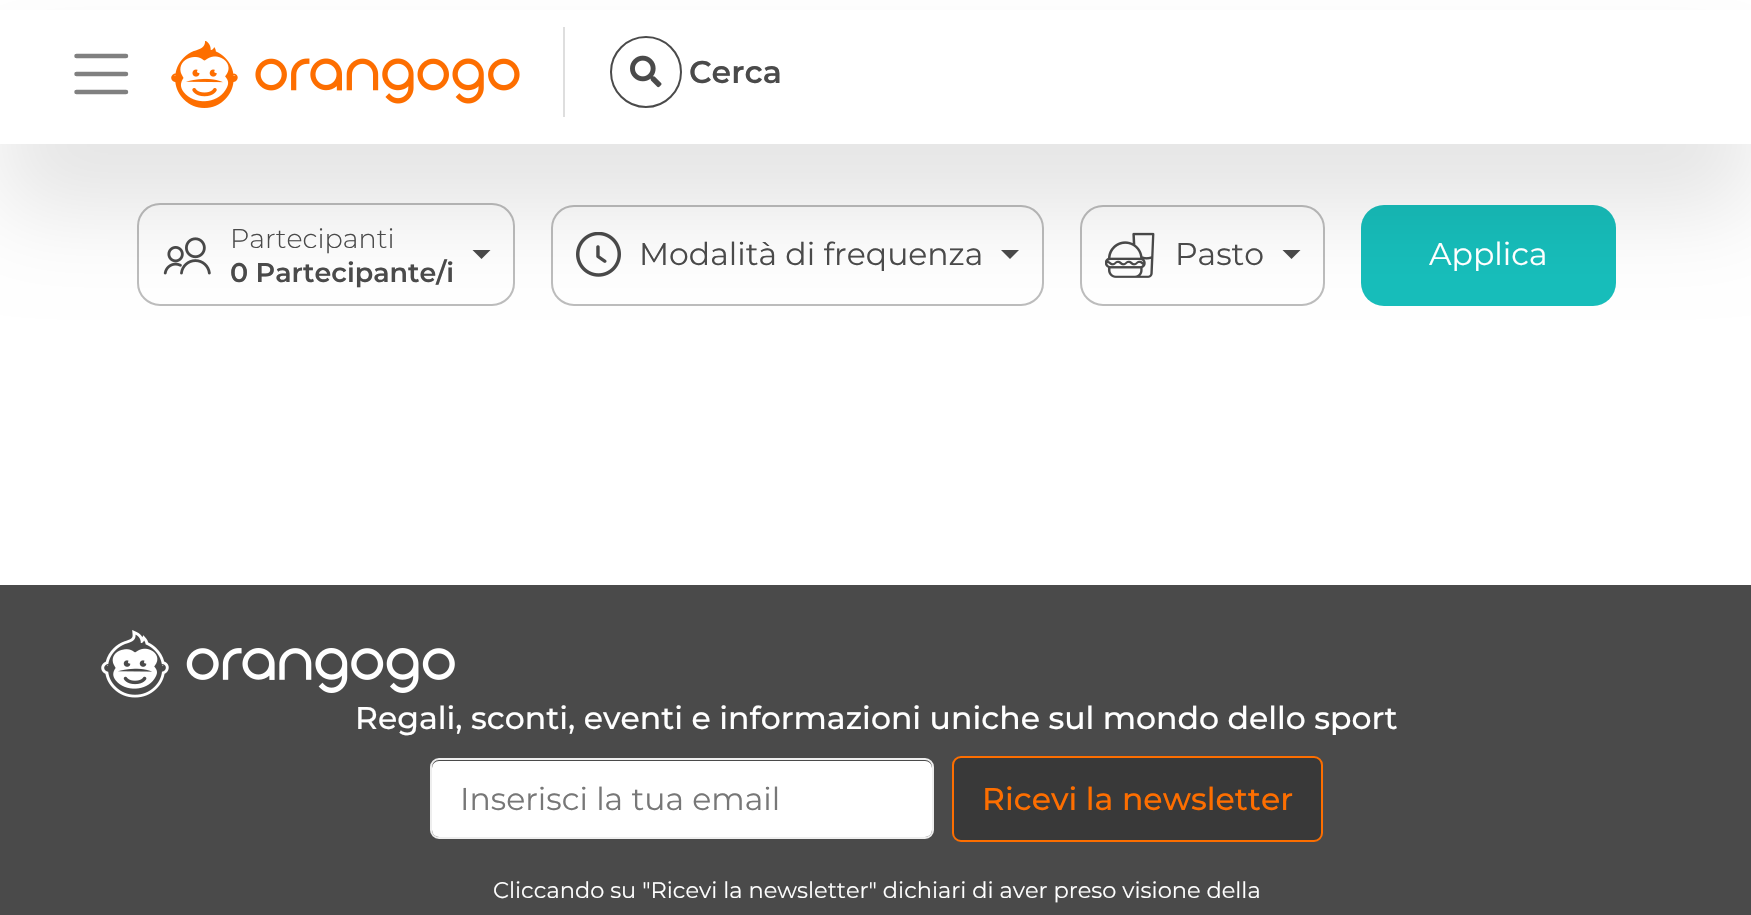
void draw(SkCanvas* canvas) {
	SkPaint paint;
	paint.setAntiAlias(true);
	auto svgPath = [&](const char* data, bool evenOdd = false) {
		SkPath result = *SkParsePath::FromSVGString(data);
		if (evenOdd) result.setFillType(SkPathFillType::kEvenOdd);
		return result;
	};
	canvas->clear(0xffffffff);
	paint.setStroke(true);
	paint.setStrokeWidth(2);
	paint.setColor(0xffbdbdbd);
	canvas->drawRoundRect(SkRect::MakeXYWH(138, 204, 376, 101), 22, 22, paint);
	canvas->drawImageRect(SkImages::DeferredFromEncodedData(SkData::MakeFromFileName("img3.png")), SkRect::MakeXYWH(163, 237, 48, 38), SkSamplingOptions());
	paint.setStroke(false);
	paint.setColor(0xff4a4a4a);
	canvas->drawPath(svgPath("M472.5 250H490.5L481.5 259Z"), paint);
	paint.setStroke(true);
	paint.setColor(0xffbdbdbd);
	canvas->drawRoundRect(SkRect::MakeXYWH(552, 206, 491, 99), 22, 22, paint);
	canvas->drawImageRect(SkImages::DeferredFromEncodedData(SkData::MakeFromFileName("img4.png")), SkRect::MakeXYWH(576, 232, 45, 45), SkSamplingOptions());
	paint.setStroke(false);
	paint.setColor(0xff4a4a4a);
	canvas->drawPath(svgPath("M1001 250H1019L1010 259Z"), paint);
	paint.setStroke(true);
	paint.setColor(0xffbdbdbd);
	canvas->drawRoundRect(SkRect::MakeXYWH(1081, 206, 243, 99), 22, 22, paint);
	canvas->drawImageRect(SkImages::DeferredFromEncodedData(SkData::MakeFromFileName("img5.png")), SkRect::MakeXYWH(1105, 232, 50, 46), SkSamplingOptions());
	paint.setStroke(false);
	paint.setColor(0xff4a4a4a);
	canvas->drawPath(svgPath("M1282.5 250H1300.5L1291.5 259Z"), paint);
	paint.setColor(0xff17bebb);
	canvas->drawRoundRect(SkRect::MakeXYWH(1361, 205, 255, 101), 23, 23, paint);
	paint.setColor(0x1a000000);
	paint.setMaskFilter(SkMaskFilter::MakeBlur(kNormal_SkBlurStyle, 45));
	canvas->drawRect(SkRect::MakeXYWH(0, 68, 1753, 144), paint);
	paint.setMaskFilter(nullptr);
	paint.setColor(0xffffffff);
	canvas->drawRect(SkRect::MakeXYWH(0, 10, 1751, 134), paint);
	paint.setStroke(true);
	paint.setStrokeWidth(4.5);
	paint.setStrokeCap(SkPaint::kRound_Cap);
	paint.setColor(0xff808080);
	canvas->drawPath(svgPath("M76.5 56H126M76.5 74H126M76.5 92H126"), paint);
	canvas->drawImageRect(SkImages::DeferredFromEncodedData(SkData::MakeFromFileName("img1.png")), SkRect::MakeXYWH(171, 41, 349, 67), SkSamplingOptions());
	paint.setStroke(false);
	paint.setColor(0xffdedede);
	canvas->drawRect(SkRect::MakeXYWH(563, 27, 2, 90), paint);
	paint.setStroke(true);
	paint.setStrokeWidth(2);
	paint.setStrokeCap(SkPaint::kButt_Cap);
	paint.setColor(0xff4a4a4a);
	canvas->drawCircle(646, 72, 35, paint);
	canvas->drawImageRect(SkImages::DeferredFromEncodedData(SkData::MakeFromFileName("img2.png")), SkRect::MakeXYWH(630, 55, 32, 33), SkSamplingOptions());
	SkFont f1(fontMgr->matchFamilyStyle("Montserrat", SkFontStyle(600, SkFontStyle::kNormal_Width, SkFontStyle::kUpright_Slant)), 31.5);
	f1.setSubpixel(true);
	paint.setStroke(false);
	canvas->drawString("Cerca", 689, 83, f1, paint);
	SkFont f2(fontMgr->matchFamilyStyle("Montserrat", SkFontStyle(300, SkFontStyle::kNormal_Width, SkFontStyle::kUpright_Slant)), 27);
	f2.setSubpixel(true);
	canvas->drawString("Partecipanti", 230, 248, f2, paint);
	SkFont f3(fontMgr->matchFamilyStyle("Montserrat", SkFontStyle(600, SkFontStyle::kNormal_Width, SkFontStyle::kUpright_Slant)), 27);
	f3.setSubpixel(true);
	canvas->drawString("0 Partecipante/i", 230, 282, f3, paint);
	SkFont f4(fontMgr->matchFamilyStyle("Montserrat", SkFontStyle::Normal()), 31.5);
	f4.setSubpixel(true);
	canvas->drawString("Modalità di frequenza", 639, 265, f4, paint);
	canvas->drawString("Pasto", 1175, 265, f4, paint);
	paint.setColor(0xffffffff);
	canvas->drawString("Applica", 1429, 265, f4, paint);
	paint.setColor(0xff4a4a4a);
	canvas->drawRect(SkRect::MakeXYWH(0, 585, 1751, 330), paint);
	canvas->drawImageRect(SkImages::DeferredFromEncodedData(SkData::MakeFromFileName("img6.png")), SkRect::MakeXYWH(101, 630, 354, 68), SkSamplingOptions());
	SkFont f5(fontMgr->matchFamilyStyle("Montserrat", SkFontStyle(500, SkFontStyle::kNormal_Width, SkFontStyle::kUpright_Slant)), 31.5);
	f5.setSubpixel(true);
	paint.setColor(0xffffffff);
	canvas->drawString("Regali, sconti, eventi e informazioni uniche sul mondo dello sport", 355, 729, f5, paint);
	canvas->drawRoundRect(SkRect::MakeXYWH(432, 761, 500, 76), 7, 7, paint);
	paint.setStroke(true);
	paint.setColor(0xffeeeeee);
	canvas->drawRoundRect(SkRect::MakeXYWH(431, 759, 502, 79), 8, 8, paint);
	paint.setStroke(false);
	paint.setColor(0xff777777);
	canvas->drawString("Inserisci la tua email", 460, 810, f4, paint);
	paint.setColor(0xff393939);
	canvas->drawRoundRect(SkRect::MakeXYWH(953, 757, 369, 84), 8, 8, paint);
	paint.setStroke(true);
	paint.setColor(0xfffd6e00);
	canvas->drawRoundRect(SkRect::MakeXYWH(953, 757, 369, 84), 8, 8, paint);
	paint.setStroke(false);
	canvas->drawString("Ricevi la newsletter", 982, 810, f5, paint);
	SkFont f6(fontMgr->matchFamilyStyle("Montserrat", SkFontStyle::Normal()), 22.5);
	f6.setSubpixel(true);
	paint.setColor(0xffffffff);
	canvas->drawString("Cliccando su \"Ricevi la newsletter\" dichiari di aver preso visione della", 493, 898, f6, paint);
}
